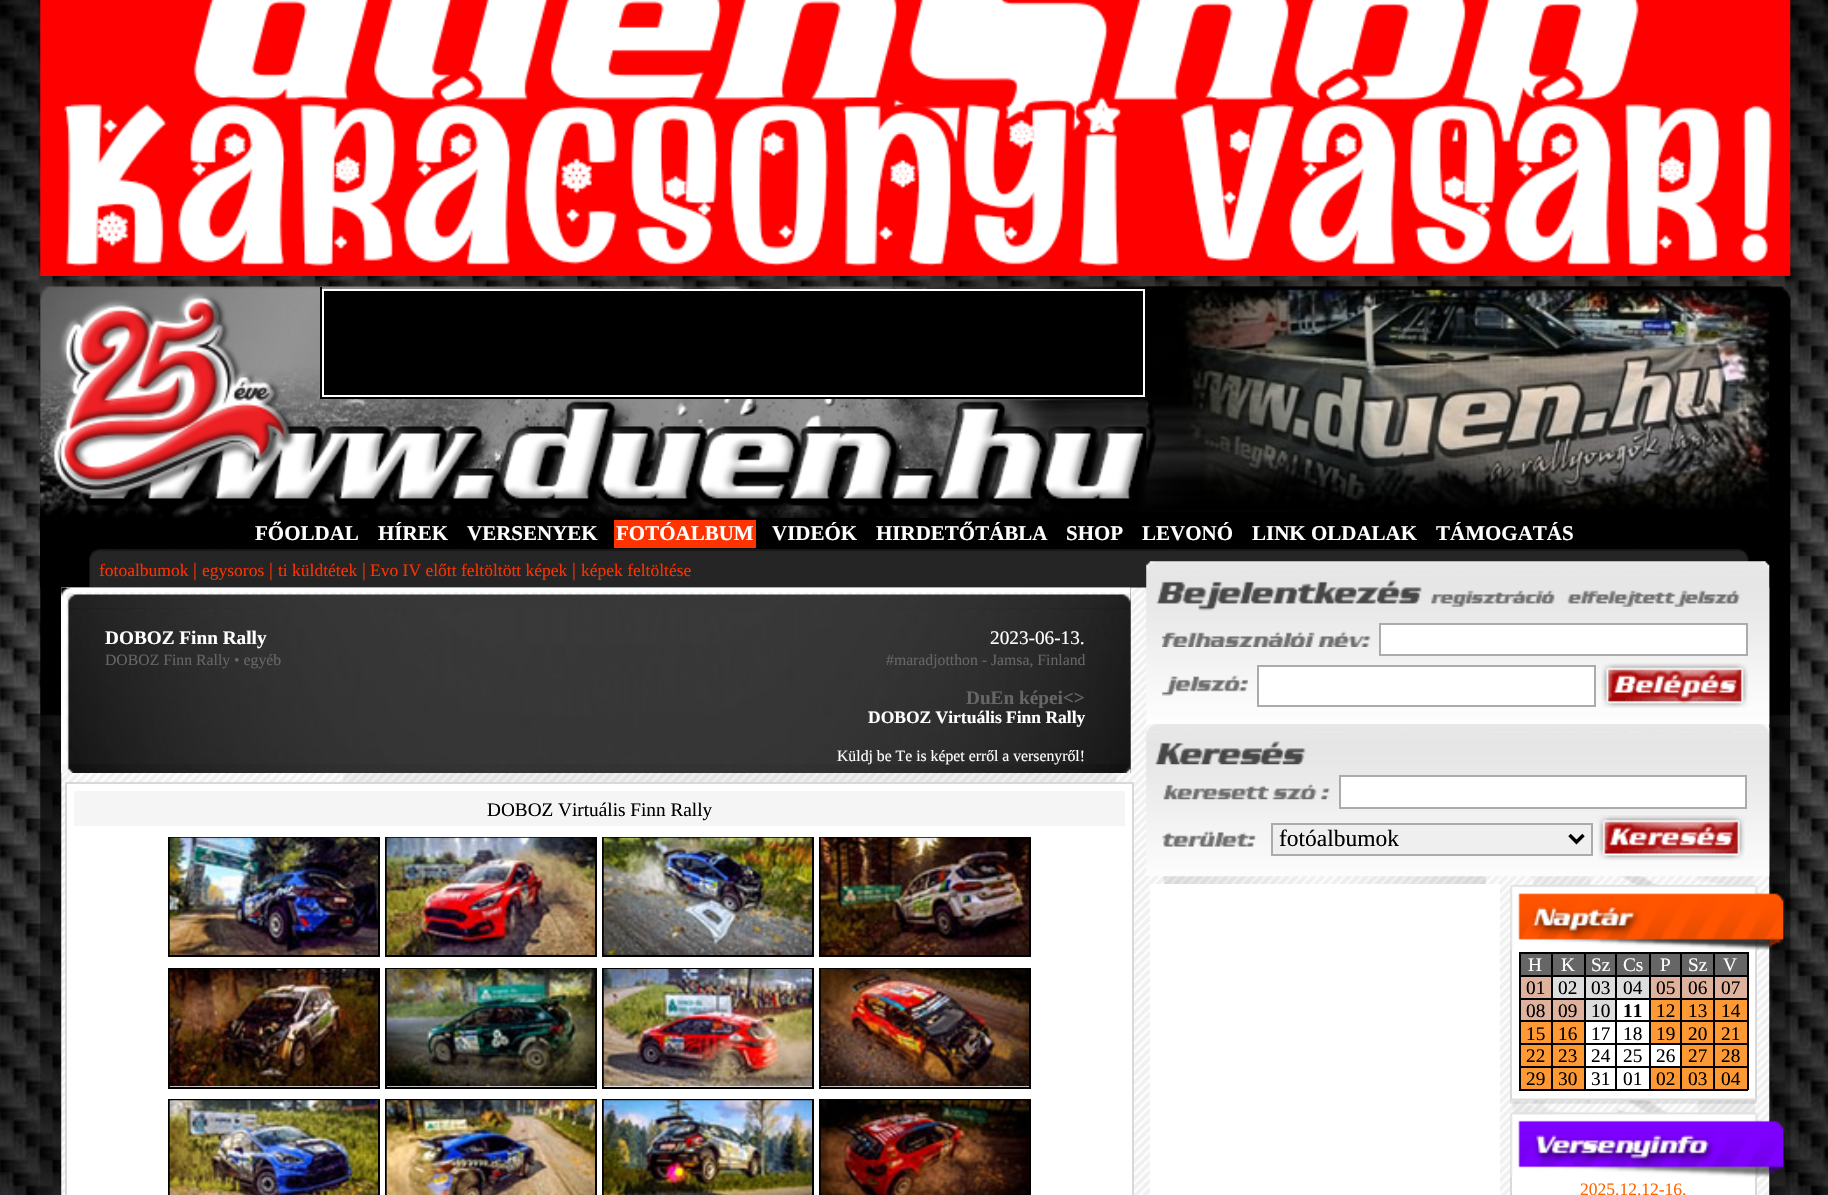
void draw(SkCanvas* canvas) {
	SkPaint paint;
	paint.setAntiAlias(true);
	auto svgPath = [&](const char* data, bool evenOdd = false) {
		SkPath result = *SkParsePath::FromSVGString(data);
		if (evenOdd) result.setFillType(SkPathFillType::kEvenOdd);
		return result;
	};
	canvas->clear(0xffffffff);
	canvas->drawImageRect(SkImages::DeferredFromEncodedData(SkData::MakeFromFileName("img1.png")), SkRect::MakeXYWH(0, 0, 1828, 1195), SkSamplingOptions());
	canvas->drawImageRect(SkImages::DeferredFromEncodedData(SkData::MakeFromFileName("img2.png")), SkRect::MakeXYWH(40, 0, 1751, 276), SkSamplingOptions());
	canvas->drawImageRect(SkImages::DeferredFromEncodedData(SkData::MakeFromFileName("img3.png")), SkRect::MakeXYWH(40, 296, 1751, 899), SkSamplingOptions());
	canvas->drawImageRect(SkImages::DeferredFromEncodedData(SkData::MakeFromFileName("img4.png")), SkRect::MakeXYWH(40, 286, 1751, 242), SkSamplingOptions());
	paint.setColor(0xff000000);
	canvas->drawRect(SkRect::MakeXYWH(1145, 287, 2, 112), paint);
	canvas->drawRect(SkRect::MakeXYWH(320, 397, 826, 2), paint);
	canvas->drawRect(SkRect::MakeXYWH(320, 287, 2, 112), paint);
	canvas->drawRect(SkRect::MakeXYWH(323, 290, 821, 106), paint);
	paint.setStroke(true);
	paint.setStrokeWidth(2);
	paint.setColor(0xffffffff);
	canvas->drawRect(SkRect::MakeXYWH(323, 290, 821, 106), paint);
	canvas->drawImageRect(SkImages::DeferredFromEncodedData(SkData::MakeFromFileName("img5.png")), SkRect::MakeXYWH(1146, 286, 624, 224), SkSamplingOptions());
	paint.setStroke(false);
	paint.setColor(0xff000000);
	canvas->drawRect(SkRect::MakeXYWH(40, 518, 1012, 70), paint);
	SkFont f1(fontMgr->matchFamilyStyle("Liberation Serif", SkFontStyle::Bold()), 21);
	f1.setSubpixel(true);
	paint.setColor(0xffffffff);
	canvas->drawString("FŐOLDAL", 255, 540, f1, paint);
	canvas->drawString("HÍREK", 378, 540, f1, paint);
	canvas->drawString("VERSENYEK", 467, 540, f1, paint);
	paint.setColor(0xffff3300);
	canvas->drawRect(SkRect::MakeXYWH(614, 520, 142, 28), paint);
	paint.setColor(0xffffffff);
	canvas->drawString("FOTÓALBUM", 616, 540, f1, paint);
	canvas->drawString("VIDEÓK", 772, 540, f1, paint);
	canvas->drawString("HIRDETŐTÁBLA", 876, 540, f1, paint);
	canvas->drawString("SHOP", 1066, 540, f1, paint);
	canvas->drawString("LEVONÓ", 1142, 540, f1, paint);
	canvas->drawString("LINK OLDALAK", 1252, 540, f1, paint);
	canvas->drawString("TÁMOGATÁS", 1436, 540, f1, paint);
	canvas->drawImageRect(SkImages::DeferredFromEncodedData(SkData::MakeFromFileName("img6.png")), SkRect::MakeXYWH(89, 549, 1702, 39), SkSamplingOptions());
	SkFont f2(fontMgr->matchFamilyStyle("Liberation Serif", SkFontStyle::Normal()), 17.5);
	f2.setSubpixel(true);
	paint.setColor(0xfffa3200);
	canvas->drawString("fotoalbumok", 99, 576, f2, paint);
	SkFont f3(fontMgr->matchFamilyStyle("Liberation Serif", SkFontStyle::Normal()), 19.25);
	f3.setSubpixel(true);
	canvas->drawString("|", 193, 576, f3, paint);
	canvas->drawString("egysoros", 202, 576, f2, paint);
	canvas->drawString("|", 269, 576, f3, paint);
	canvas->drawString("ti küldtétek", 278, 576, f2, paint);
	canvas->drawString("|", 362, 576, f3, paint);
	canvas->drawString("Evo IV előtt feltöltött képek", 370, 576, f2, paint);
	canvas->drawString("|", 572, 576, f3, paint);
	canvas->drawString("képek feltöltése", 581, 576, f2, paint);
	canvas->drawImageRect(SkImages::DeferredFromEncodedData(SkData::MakeFromFileName("img7.png")), SkRect::MakeXYWH(61, 587, 1709, 608), SkSamplingOptions());
	canvas->drawImageRect(SkImages::DeferredFromEncodedData(SkData::MakeFromFileName("img8.png")), SkRect::MakeXYWH(343, 587, 1412, 528), SkSamplingOptions());
	canvas->drawImageRect(SkImages::DeferredFromEncodedData(SkData::MakeFromFileName("img9.png")), SkRect::MakeXYWH(61, 587, 1070, 186), SkSamplingOptions());
	canvas->drawImageRect(SkImages::DeferredFromEncodedData(SkData::MakeFromFileName("img10.png")), SkRect::MakeXYWH(61, 587, 1070, 22), SkSamplingOptions());
	canvas->drawImageRect(SkImages::DeferredFromEncodedData(SkData::MakeFromFileName("img11.png")), SkRect::MakeXYWH(61, 608, 1070, 157), SkSamplingOptions());
	SkFont f4(fontMgr->matchFamilyStyle("Liberation Serif", SkFontStyle::Bold()), 19.25);
	f4.setSubpixel(true);
	paint.setColor(0xffffffff);
	canvas->drawString("DOBOZ Finn Rally", 105, 644, f4, paint);
	SkFont f5(fontMgr->matchFamilyStyle("Liberation Serif", SkFontStyle::Normal()), 15.75);
	f5.setSubpixel(true);
	paint.setColor(0xff666666);
	canvas->drawString("DOBOZ Finn Rally • egyéb", 105, 665, f5, paint);
	paint.setColor(0xffffffff);
	canvas->drawString("2023-06-13.", 990, 644, f3, paint);
	paint.setColor(0xff666666);
	canvas->drawString("#maradjotthon - Jamsa, Finland", 886, 665, f5, paint);
	canvas->drawString("DuEn képei<>", 966, 704, f4, paint);
	SkFont f6(fontMgr->matchFamilyStyle("Liberation Serif", SkFontStyle::Bold()), 17.5);
	f6.setSubpixel(true);
	paint.setColor(0xffffffff);
	canvas->drawString("DOBOZ Virtuális Finn Rally", 868, 723, f6, paint);
	canvas->drawImageRect(SkImages::DeferredFromEncodedData(SkData::MakeFromFileName("img12.png")), SkRect::MakeXYWH(61, 764, 1070, 9), SkSamplingOptions());
	canvas->drawString("Küldj be Te is képet erről a versenyről!", 837, 761, f5, paint);
	canvas->drawRect(SkRect::MakeXYWH(67, 784, 1065, 411), paint);
	paint.setColor(0xffd8d8d8);
	canvas->drawRect(SkRect::MakeXYWH(65, 782, 1069, 2), paint);
	canvas->drawRect(SkRect::MakeXYWH(1132, 782, 2, 413), paint);
	canvas->drawRect(SkRect::MakeXYWH(65, 782, 2, 413), paint);
	paint.setColor(0xfff5f5f5);
	canvas->drawRect(SkRect::MakeXYWH(74, 791, 1051, 35), paint);
	paint.setColor(0xff000000);
	canvas->drawString("DOBOZ Virtuális Finn Rally", 487, 816, f3, paint);
	paint.setStroke(true);
	canvas->drawRect(SkRect::MakeXYWH(169, 838, 210, 118), paint);
	canvas->drawImageRect(SkImages::DeferredFromEncodedData(SkData::MakeFromFileName("img13.png")), SkRect::MakeXYWH(169, 837, 209, 118), SkSamplingOptions());
	canvas->drawRect(SkRect::MakeXYWH(386, 838, 210, 118), paint);
	canvas->drawImageRect(SkImages::DeferredFromEncodedData(SkData::MakeFromFileName("img14.png")), SkRect::MakeXYWH(386, 837, 209, 118), SkSamplingOptions());
	canvas->drawRect(SkRect::MakeXYWH(603, 838, 210, 118), paint);
	canvas->drawImageRect(SkImages::DeferredFromEncodedData(SkData::MakeFromFileName("img15.png")), SkRect::MakeXYWH(603, 837, 209, 118), SkSamplingOptions());
	canvas->drawRect(SkRect::MakeXYWH(820, 838, 210, 118), paint);
	canvas->drawImageRect(SkImages::DeferredFromEncodedData(SkData::MakeFromFileName("img16.png")), SkRect::MakeXYWH(820, 837, 209, 118), SkSamplingOptions());
	canvas->drawRect(SkRect::MakeXYWH(169, 969, 210, 119), paint);
	canvas->drawRect(SkRect::MakeXYWH(386, 969, 210, 119), paint);
	canvas->drawRect(SkRect::MakeXYWH(603, 969, 210, 119), paint);
	canvas->drawRect(SkRect::MakeXYWH(820, 969, 210, 119), paint);
	canvas->drawImageRect(SkImages::DeferredFromEncodedData(SkData::MakeFromFileName("img17.png")), SkRect::MakeXYWH(169, 969, 209, 118), SkSamplingOptions());
	canvas->drawImageRect(SkImages::DeferredFromEncodedData(SkData::MakeFromFileName("img18.png")), SkRect::MakeXYWH(386, 969, 209, 118), SkSamplingOptions());
	canvas->drawImageRect(SkImages::DeferredFromEncodedData(SkData::MakeFromFileName("img19.png")), SkRect::MakeXYWH(603, 969, 209, 118), SkSamplingOptions());
	canvas->drawImageRect(SkImages::DeferredFromEncodedData(SkData::MakeFromFileName("img20.png")), SkRect::MakeXYWH(820, 969, 209, 118), SkSamplingOptions());
	canvas->drawRect(SkRect::MakeXYWH(169, 1100, 210, 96), paint);
	canvas->drawRect(SkRect::MakeXYWH(386, 1100, 210, 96), paint);
	canvas->drawRect(SkRect::MakeXYWH(603, 1100, 210, 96), paint);
	canvas->drawRect(SkRect::MakeXYWH(820, 1100, 210, 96), paint);
	canvas->drawImageRect(SkImages::DeferredFromEncodedData(SkData::MakeFromFileName("img21.png")), SkRect::MakeXYWH(169, 1100, 209, 95), SkSamplingOptions());
	canvas->drawImageRect(SkImages::DeferredFromEncodedData(SkData::MakeFromFileName("img22.png")), SkRect::MakeXYWH(386, 1100, 209, 95), SkSamplingOptions());
	canvas->drawImageRect(SkImages::DeferredFromEncodedData(SkData::MakeFromFileName("img23.png")), SkRect::MakeXYWH(603, 1100, 209, 95), SkSamplingOptions());
	canvas->drawImageRect(SkImages::DeferredFromEncodedData(SkData::MakeFromFileName("img24.png")), SkRect::MakeXYWH(820, 1100, 209, 95), SkSamplingOptions());
	canvas->drawImageRect(SkImages::DeferredFromEncodedData(SkData::MakeFromFileName("img25.png")), SkRect::MakeXYWH(1146, 561, 624, 9), SkSamplingOptions());
	canvas->drawImageRect(SkImages::DeferredFromEncodedData(SkData::MakeFromFileName("img26.png")), SkRect::MakeXYWH(1146, 570, 624, 154), SkSamplingOptions());
	canvas->drawImageRect(SkImages::DeferredFromEncodedData(SkData::MakeFromFileName("img27.png")), SkRect::MakeXYWH(1156, 580, 266, 31), SkSamplingOptions());
	canvas->drawImageRect(SkImages::DeferredFromEncodedData(SkData::MakeFromFileName("img28.png")), SkRect::MakeXYWH(1430, 590, 125, 17), SkSamplingOptions());
	canvas->drawImageRect(SkImages::DeferredFromEncodedData(SkData::MakeFromFileName("img29.png")), SkRect::MakeXYWH(1567, 590, 173, 17), SkSamplingOptions());
	canvas->drawImageRect(SkImages::DeferredFromEncodedData(SkData::MakeFromFileName("img30.png")), SkRect::MakeXYWH(1162, 631, 209, 16), SkSamplingOptions());
	paint.setStroke(false);
	paint.setColor(0xffffffff);
	canvas->drawRect(SkRect::MakeXYWH(1380, 624, 367, 31), paint);
	paint.setStroke(true);
	paint.setColor(0xffababab);
	canvas->drawRect(SkRect::MakeXYWH(1380, 624, 367, 31), paint);
	canvas->drawImageRect(SkImages::DeferredFromEncodedData(SkData::MakeFromFileName("img31.png")), SkRect::MakeXYWH(1162, 675, 86, 21), SkSamplingOptions());
	paint.setStroke(false);
	paint.setColor(0xffffffff);
	canvas->drawRect(SkRect::MakeXYWH(1258, 666, 337, 40), paint);
	paint.setStroke(true);
	paint.setColor(0xffababab);
	canvas->drawRect(SkRect::MakeXYWH(1258, 666, 337, 40), paint);
	canvas->drawImageRect(SkImages::DeferredFromEncodedData(SkData::MakeFromFileName("img32.png")), SkRect::MakeXYWH(1601, 663, 147, 45), SkSamplingOptions());
	canvas->drawImageRect(SkImages::DeferredFromEncodedData(SkData::MakeFromFileName("img33.png")), SkRect::MakeXYWH(1146, 724, 624, 9), SkSamplingOptions());
	canvas->drawImageRect(SkImages::DeferredFromEncodedData(SkData::MakeFromFileName("img34.png")), SkRect::MakeXYWH(1146, 732, 624, 145), SkSamplingOptions());
	canvas->drawImageRect(SkImages::DeferredFromEncodedData(SkData::MakeFromFileName("img35.png")), SkRect::MakeXYWH(1155, 741, 151, 24), SkSamplingOptions());
	canvas->drawImageRect(SkImages::DeferredFromEncodedData(SkData::MakeFromFileName("img36.png")), SkRect::MakeXYWH(1162, 783, 168, 17), SkSamplingOptions());
	paint.setStroke(false);
	paint.setColor(0xffffffff);
	canvas->drawRect(SkRect::MakeXYWH(1340, 776, 406, 32), paint);
	paint.setStroke(true);
	paint.setColor(0xffababab);
	canvas->drawRect(SkRect::MakeXYWH(1340, 776, 406, 32), paint);
	canvas->drawImageRect(SkImages::DeferredFromEncodedData(SkData::MakeFromFileName("img37.png")), SkRect::MakeXYWH(1162, 830, 94, 17), SkSamplingOptions());
	paint.setStroke(false);
	paint.setColor(0xffefefef);
	canvas->drawRect(SkRect::MakeXYWH(1272, 824, 320, 31), paint);
	paint.setStroke(true);
	paint.setColor(0xffababab);
	canvas->drawRect(SkRect::MakeXYWH(1272, 824, 320, 31), paint);
	paint.setStrokeWidth(3.5);
	paint.setColor(0xff000000);
	canvas->drawPath(svgPath("M1569.5 835L1576.5 842L1583.5 835"), paint);
	SkFont f7(fontMgr->matchFamilyStyle("Liberation Serif", SkFontStyle::Normal()), 23.5);
	f7.setSubpixel(true);
	paint.setStroke(false);
	canvas->drawString("fotóalbumok", 1279, 846, f7, paint);
	canvas->drawImageRect(SkImages::DeferredFromEncodedData(SkData::MakeFromFileName("img38.png")), SkRect::MakeXYWH(1598, 815, 147, 46), SkSamplingOptions());
	paint.setColor(0xffffffff);
	canvas->drawRect(SkRect::MakeXYWH(1150, 884, 350, 311), paint);
	canvas->drawRect(SkRect::MakeXYWH(1512, 949, 243, 150), paint);
	paint.setColor(0xffd9d9d9);
	canvas->drawRect(SkRect::MakeXYWH(1755, 945, 2, 154), paint);
	canvas->drawRect(SkRect::MakeXYWH(1510, 945, 2, 154), paint);
	canvas->drawImageRect(SkImages::DeferredFromEncodedData(SkData::MakeFromFileName("img39.png")), SkRect::MakeXYWH(1510, 885, 274, 65), SkSamplingOptions());
	paint.setColor(0xff666666);
	canvas->drawRect(SkRect::MakeXYWH(1521, 954, 30, 21), paint);
	paint.setColor(0xff000000);
	canvas->drawRect(SkRect::MakeXYWH(1713, 952, 35, 2), paint);
	canvas->drawRect(SkRect::MakeXYWH(1713, 975, 35, 2), paint);
	canvas->drawRect(SkRect::MakeXYWH(1713, 998, 35, 2), paint);
	canvas->drawRect(SkRect::MakeXYWH(1713, 1020, 35, 2), paint);
	canvas->drawRect(SkRect::MakeXYWH(1713, 1043, 35, 2), paint);
	canvas->drawRect(SkRect::MakeXYWH(1713, 1066, 35, 2), paint);
	canvas->drawRect(SkRect::MakeXYWH(1747, 1066, 2, 24), paint);
	canvas->drawRect(SkRect::MakeXYWH(1713, 1089, 35, 2), paint);
	canvas->drawRect(SkRect::MakeXYWH(1713, 1066, 2, 24), paint);
	canvas->drawRect(SkRect::MakeXYWH(1680, 1066, 35, 2), paint);
	canvas->drawRect(SkRect::MakeXYWH(1713, 1043, 2, 25), paint);
	canvas->drawRect(SkRect::MakeXYWH(1680, 1043, 35, 2), paint);
	canvas->drawRect(SkRect::MakeXYWH(1713, 1020, 2, 25), paint);
	canvas->drawRect(SkRect::MakeXYWH(1680, 1020, 35, 2), paint);
	canvas->drawRect(SkRect::MakeXYWH(1713, 998, 2, 24), paint);
	canvas->drawRect(SkRect::MakeXYWH(1680, 998, 35, 2), paint);
	canvas->drawRect(SkRect::MakeXYWH(1713, 975, 2, 24), paint);
	canvas->drawRect(SkRect::MakeXYWH(1680, 975, 35, 2), paint);
	canvas->drawRect(SkRect::MakeXYWH(1713, 952, 2, 25), paint);
	canvas->drawRect(SkRect::MakeXYWH(1680, 952, 35, 2), paint);
	canvas->drawRect(SkRect::MakeXYWH(1680, 1089, 35, 2), paint);
	canvas->drawRect(SkRect::MakeXYWH(1680, 1066, 2, 24), paint);
	canvas->drawRect(SkRect::MakeXYWH(1649, 1066, 33, 2), paint);
	canvas->drawRect(SkRect::MakeXYWH(1680, 1043, 2, 25), paint);
	canvas->drawRect(SkRect::MakeXYWH(1649, 1043, 33, 2), paint);
	canvas->drawRect(SkRect::MakeXYWH(1680, 1020, 2, 25), paint);
	canvas->drawRect(SkRect::MakeXYWH(1649, 1020, 33, 2), paint);
	canvas->drawRect(SkRect::MakeXYWH(1680, 998, 2, 24), paint);
	canvas->drawRect(SkRect::MakeXYWH(1649, 998, 33, 2), paint);
	canvas->drawRect(SkRect::MakeXYWH(1680, 975, 2, 24), paint);
	canvas->drawRect(SkRect::MakeXYWH(1649, 975, 33, 2), paint);
	canvas->drawRect(SkRect::MakeXYWH(1680, 952, 2, 25), paint);
	canvas->drawRect(SkRect::MakeXYWH(1649, 952, 33, 2), paint);
	canvas->drawRect(SkRect::MakeXYWH(1649, 1089, 33, 2), paint);
	canvas->drawRect(SkRect::MakeXYWH(1649, 1066, 2, 24), paint);
	canvas->drawRect(SkRect::MakeXYWH(1615, 1066, 35, 2), paint);
	canvas->drawRect(SkRect::MakeXYWH(1649, 1043, 2, 25), paint);
	canvas->drawRect(SkRect::MakeXYWH(1615, 1043, 35, 2), paint);
	canvas->drawRect(SkRect::MakeXYWH(1649, 1020, 2, 25), paint);
	canvas->drawRect(SkRect::MakeXYWH(1615, 1020, 35, 2), paint);
	canvas->drawRect(SkRect::MakeXYWH(1649, 998, 2, 24), paint);
	canvas->drawRect(SkRect::MakeXYWH(1615, 998, 35, 2), paint);
	canvas->drawRect(SkRect::MakeXYWH(1649, 975, 2, 24), paint);
	canvas->drawRect(SkRect::MakeXYWH(1615, 975, 35, 2), paint);
	canvas->drawRect(SkRect::MakeXYWH(1649, 952, 2, 25), paint);
	canvas->drawRect(SkRect::MakeXYWH(1615, 952, 35, 2), paint);
	canvas->drawRect(SkRect::MakeXYWH(1615, 1089, 35, 2), paint);
	canvas->drawRect(SkRect::MakeXYWH(1615, 1066, 2, 24), paint);
	canvas->drawRect(SkRect::MakeXYWH(1584, 1066, 33, 2), paint);
	canvas->drawRect(SkRect::MakeXYWH(1615, 1043, 2, 25), paint);
	canvas->drawRect(SkRect::MakeXYWH(1584, 1043, 33, 2), paint);
	canvas->drawRect(SkRect::MakeXYWH(1615, 1020, 2, 25), paint);
	canvas->drawRect(SkRect::MakeXYWH(1584, 1020, 33, 2), paint);
	canvas->drawRect(SkRect::MakeXYWH(1615, 998, 2, 24), paint);
	canvas->drawRect(SkRect::MakeXYWH(1584, 998, 33, 2), paint);
	canvas->drawRect(SkRect::MakeXYWH(1615, 975, 2, 24), paint);
	canvas->drawRect(SkRect::MakeXYWH(1584, 975, 33, 2), paint);
	canvas->drawRect(SkRect::MakeXYWH(1615, 952, 2, 25), paint);
	canvas->drawRect(SkRect::MakeXYWH(1584, 952, 33, 2), paint);
	canvas->drawRect(SkRect::MakeXYWH(1584, 1089, 33, 2), paint);
	canvas->drawRect(SkRect::MakeXYWH(1584, 1066, 2, 24), paint);
	canvas->drawRect(SkRect::MakeXYWH(1551, 1066, 35, 2), paint);
	canvas->drawRect(SkRect::MakeXYWH(1584, 1043, 2, 25), paint);
	canvas->drawRect(SkRect::MakeXYWH(1551, 1043, 35, 2), paint);
	canvas->drawRect(SkRect::MakeXYWH(1584, 1020, 2, 25), paint);
	canvas->drawRect(SkRect::MakeXYWH(1551, 1020, 35, 2), paint);
	canvas->drawRect(SkRect::MakeXYWH(1584, 998, 2, 24), paint);
	canvas->drawRect(SkRect::MakeXYWH(1551, 998, 35, 2), paint);
	canvas->drawRect(SkRect::MakeXYWH(1584, 975, 2, 24), paint);
	canvas->drawRect(SkRect::MakeXYWH(1551, 975, 35, 2), paint);
	canvas->drawRect(SkRect::MakeXYWH(1584, 952, 2, 25), paint);
	canvas->drawRect(SkRect::MakeXYWH(1551, 952, 35, 2), paint);
	canvas->drawRect(SkRect::MakeXYWH(1551, 1089, 35, 2), paint);
	canvas->drawRect(SkRect::MakeXYWH(1551, 1066, 2, 24), paint);
	canvas->drawRect(SkRect::MakeXYWH(1519, 1066, 33, 2), paint);
	canvas->drawRect(SkRect::MakeXYWH(1551, 1043, 2, 25), paint);
	canvas->drawRect(SkRect::MakeXYWH(1519, 1043, 33, 2), paint);
	canvas->drawRect(SkRect::MakeXYWH(1551, 1020, 2, 25), paint);
	canvas->drawRect(SkRect::MakeXYWH(1519, 1020, 33, 2), paint);
	canvas->drawRect(SkRect::MakeXYWH(1551, 998, 2, 24), paint);
	canvas->drawRect(SkRect::MakeXYWH(1519, 998, 33, 2), paint);
	canvas->drawRect(SkRect::MakeXYWH(1551, 975, 2, 24), paint);
	canvas->drawRect(SkRect::MakeXYWH(1519, 975, 33, 2), paint);
	canvas->drawRect(SkRect::MakeXYWH(1551, 952, 2, 25), paint);
	canvas->drawRect(SkRect::MakeXYWH(1519, 952, 33, 2), paint);
	canvas->drawRect(SkRect::MakeXYWH(1519, 1089, 33, 2), paint);
	canvas->drawRect(SkRect::MakeXYWH(1519, 1066, 2, 24), paint);
	canvas->drawRect(SkRect::MakeXYWH(1519, 1043, 2, 25), paint);
	canvas->drawRect(SkRect::MakeXYWH(1519, 1020, 2, 25), paint);
	canvas->drawRect(SkRect::MakeXYWH(1519, 998, 2, 24), paint);
	canvas->drawRect(SkRect::MakeXYWH(1519, 975, 2, 24), paint);
	canvas->drawRect(SkRect::MakeXYWH(1519, 952, 2, 25), paint);
	paint.setColor(0xffffffff);
	canvas->drawString("H", 1528, 971, f3, paint);
	paint.setColor(0xff666666);
	canvas->drawRect(SkRect::MakeXYWH(1553, 954, 31, 21), paint);
	paint.setColor(0xffffffff);
	canvas->drawString("K", 1561, 971, f3, paint);
	paint.setColor(0xff666666);
	canvas->drawRect(SkRect::MakeXYWH(1586, 954, 29, 21), paint);
	paint.setColor(0xffffffff);
	canvas->drawString("Sz", 1591, 971, f3, paint);
	paint.setColor(0xff666666);
	canvas->drawRect(SkRect::MakeXYWH(1617, 954, 32, 21), paint);
	paint.setColor(0xffffffff);
	canvas->drawString("Cs", 1623, 971, f3, paint);
	paint.setColor(0xff666666);
	canvas->drawRect(SkRect::MakeXYWH(1651, 954, 29, 21), paint);
	paint.setColor(0xffffffff);
	canvas->drawString("P", 1660, 971, f3, paint);
	paint.setColor(0xff666666);
	canvas->drawRect(SkRect::MakeXYWH(1682, 954, 31, 21), paint);
	paint.setColor(0xffffffff);
	canvas->drawString("Sz", 1688, 971, f3, paint);
	paint.setColor(0xff666666);
	canvas->drawRect(SkRect::MakeXYWH(1715, 954, 32, 21), paint);
	paint.setColor(0xff000000);
	canvas->drawRect(SkRect::MakeXYWH(1747, 1043, 2, 25), paint);
	canvas->drawRect(SkRect::MakeXYWH(1747, 1020, 2, 25), paint);
	canvas->drawRect(SkRect::MakeXYWH(1747, 998, 2, 24), paint);
	canvas->drawRect(SkRect::MakeXYWH(1747, 975, 2, 24), paint);
	canvas->drawRect(SkRect::MakeXYWH(1747, 952, 2, 25), paint);
	paint.setColor(0xffffffff);
	canvas->drawString("V", 1723, 971, f3, paint);
	paint.setColor(0xffdeb29c);
	canvas->drawRect(SkRect::MakeXYWH(1521, 977, 30, 21), paint);
	paint.setColor(0xff000000);
	canvas->drawString("01", 1526, 994, f3, paint);
	paint.setColor(0xffdddddd);
	canvas->drawRect(SkRect::MakeXYWH(1553, 977, 31, 21), paint);
	paint.setColor(0xff000000);
	canvas->drawString("02", 1558, 994, f3, paint);
	paint.setColor(0xffdddddd);
	canvas->drawRect(SkRect::MakeXYWH(1586, 977, 29, 21), paint);
	paint.setColor(0xff000000);
	canvas->drawString("03", 1591, 994, f3, paint);
	paint.setColor(0xffdddddd);
	canvas->drawRect(SkRect::MakeXYWH(1617, 977, 32, 21), paint);
	paint.setColor(0xff000000);
	canvas->drawString("04", 1623, 994, f3, paint);
	paint.setColor(0xffdeb29c);
	canvas->drawRect(SkRect::MakeXYWH(1651, 977, 29, 21), paint);
	paint.setColor(0xff000000);
	canvas->drawString("05", 1656, 994, f3, paint);
	paint.setColor(0xffdeb29c);
	canvas->drawRect(SkRect::MakeXYWH(1682, 977, 31, 21), paint);
	paint.setColor(0xff000000);
	canvas->drawString("06", 1688, 994, f3, paint);
	paint.setColor(0xffdeb29c);
	canvas->drawRect(SkRect::MakeXYWH(1715, 977, 32, 21), paint);
	paint.setColor(0xff000000);
	canvas->drawString("07", 1721, 994, f3, paint);
	paint.setColor(0xffdeb29c);
	canvas->drawRect(SkRect::MakeXYWH(1521, 1000, 30, 20), paint);
	paint.setColor(0xff000000);
	canvas->drawString("08", 1526, 1017, f3, paint);
	paint.setColor(0xffdeb29c);
	canvas->drawRect(SkRect::MakeXYWH(1553, 1000, 31, 20), paint);
	paint.setColor(0xff000000);
	canvas->drawString("09", 1558, 1017, f3, paint);
	paint.setColor(0xffdddddd);
	canvas->drawRect(SkRect::MakeXYWH(1586, 1000, 29, 20), paint);
	paint.setColor(0xff000000);
	canvas->drawString("10", 1591, 1017, f3, paint);
	canvas->drawString("11", 1623, 1017, f4, paint);
	paint.setColor(0xffff9933);
	canvas->drawRect(SkRect::MakeXYWH(1651, 1000, 29, 20), paint);
	paint.setColor(0xff000000);
	canvas->drawString("12", 1656, 1017, f3, paint);
	paint.setColor(0xffff9933);
	canvas->drawRect(SkRect::MakeXYWH(1682, 1000, 31, 20), paint);
	paint.setColor(0xff000000);
	canvas->drawString("13", 1688, 1017, f3, paint);
	paint.setColor(0xffff9933);
	canvas->drawRect(SkRect::MakeXYWH(1715, 1000, 32, 20), paint);
	paint.setColor(0xff000000);
	canvas->drawString("14", 1721, 1017, f3, paint);
	paint.setColor(0xffff9933);
	canvas->drawRect(SkRect::MakeXYWH(1521, 1022, 30, 21), paint);
	paint.setColor(0xff000000);
	canvas->drawString("15", 1526, 1040, f3, paint);
	paint.setColor(0xffff9933);
	canvas->drawRect(SkRect::MakeXYWH(1553, 1022, 31, 21), paint);
	paint.setColor(0xff000000);
	canvas->drawString("16", 1558, 1040, f3, paint);
	canvas->drawString("17", 1591, 1040, f3, paint);
	canvas->drawString("18", 1623, 1040, f3, paint);
	paint.setColor(0xffff9933);
	canvas->drawRect(SkRect::MakeXYWH(1651, 1022, 29, 21), paint);
	paint.setColor(0xff000000);
	canvas->drawString("19", 1656, 1040, f3, paint);
	paint.setColor(0xffff9933);
	canvas->drawRect(SkRect::MakeXYWH(1682, 1022, 31, 21), paint);
	paint.setColor(0xff000000);
	canvas->drawString("20", 1688, 1040, f3, paint);
	paint.setColor(0xffff9933);
	canvas->drawRect(SkRect::MakeXYWH(1715, 1022, 32, 21), paint);
	paint.setColor(0xff000000);
	canvas->drawString("21", 1721, 1040, f3, paint);
	paint.setColor(0xffff9933);
	canvas->drawRect(SkRect::MakeXYWH(1521, 1045, 30, 21), paint);
	paint.setColor(0xff000000);
	canvas->drawString("22", 1526, 1062, f3, paint);
	paint.setColor(0xffff9933);
	canvas->drawRect(SkRect::MakeXYWH(1553, 1045, 31, 21), paint);
	paint.setColor(0xff000000);
	canvas->drawString("23", 1558, 1062, f3, paint);
	canvas->drawString("24", 1591, 1062, f3, paint);
	canvas->drawString("25", 1623, 1062, f3, paint);
	canvas->drawString("26", 1656, 1062, f3, paint);
	paint.setColor(0xffff9933);
	canvas->drawRect(SkRect::MakeXYWH(1682, 1045, 31, 21), paint);
	paint.setColor(0xff000000);
	canvas->drawString("27", 1688, 1062, f3, paint);
	paint.setColor(0xffff9933);
	canvas->drawRect(SkRect::MakeXYWH(1715, 1045, 32, 21), paint);
	paint.setColor(0xff000000);
	canvas->drawString("28", 1721, 1062, f3, paint);
	paint.setColor(0xffff9933);
	canvas->drawRect(SkRect::MakeXYWH(1521, 1068, 30, 21), paint);
	paint.setColor(0xff000000);
	canvas->drawString("29", 1526, 1085, f3, paint);
	paint.setColor(0xffff9933);
	canvas->drawRect(SkRect::MakeXYWH(1553, 1068, 31, 21), paint);
	paint.setColor(0xff000000);
	canvas->drawString("30", 1558, 1085, f3, paint);
	canvas->drawString("31", 1591, 1085, f3, paint);
	canvas->drawString("01", 1623, 1085, f3, paint);
	paint.setColor(0xffff9933);
	canvas->drawRect(SkRect::MakeXYWH(1651, 1068, 29, 21), paint);
	paint.setColor(0xff000000);
	canvas->drawString("02", 1656, 1085, f3, paint);
	paint.setColor(0xffff9933);
	canvas->drawRect(SkRect::MakeXYWH(1682, 1068, 31, 21), paint);
	paint.setColor(0xff000000);
	canvas->drawString("03", 1688, 1085, f3, paint);
	paint.setColor(0xffff9933);
	canvas->drawRect(SkRect::MakeXYWH(1715, 1068, 32, 21), paint);
	paint.setColor(0xff000000);
	canvas->drawString("04", 1721, 1085, f3, paint);
	canvas->drawImageRect(SkImages::DeferredFromEncodedData(SkData::MakeFromFileName("img40.png")), SkRect::MakeXYWH(1510, 1098, 247, 6), SkSamplingOptions());
	paint.setColor(0xffffffff);
	canvas->drawRect(SkRect::MakeXYWH(1512, 1177, 243, 18), paint);
	paint.setColor(0xffd9d9d9);
	canvas->drawRect(SkRect::MakeXYWH(1755, 1173, 2, 22), paint);
	canvas->drawRect(SkRect::MakeXYWH(1510, 1173, 2, 22), paint);
	canvas->drawImageRect(SkImages::DeferredFromEncodedData(SkData::MakeFromFileName("img41.png")), SkRect::MakeXYWH(1510, 1112, 274, 66), SkSamplingOptions());
	paint.setColor(0xffff6600);
	canvas->drawString("2025.12.12-16.", 1580, 1195, f2, paint);
}
